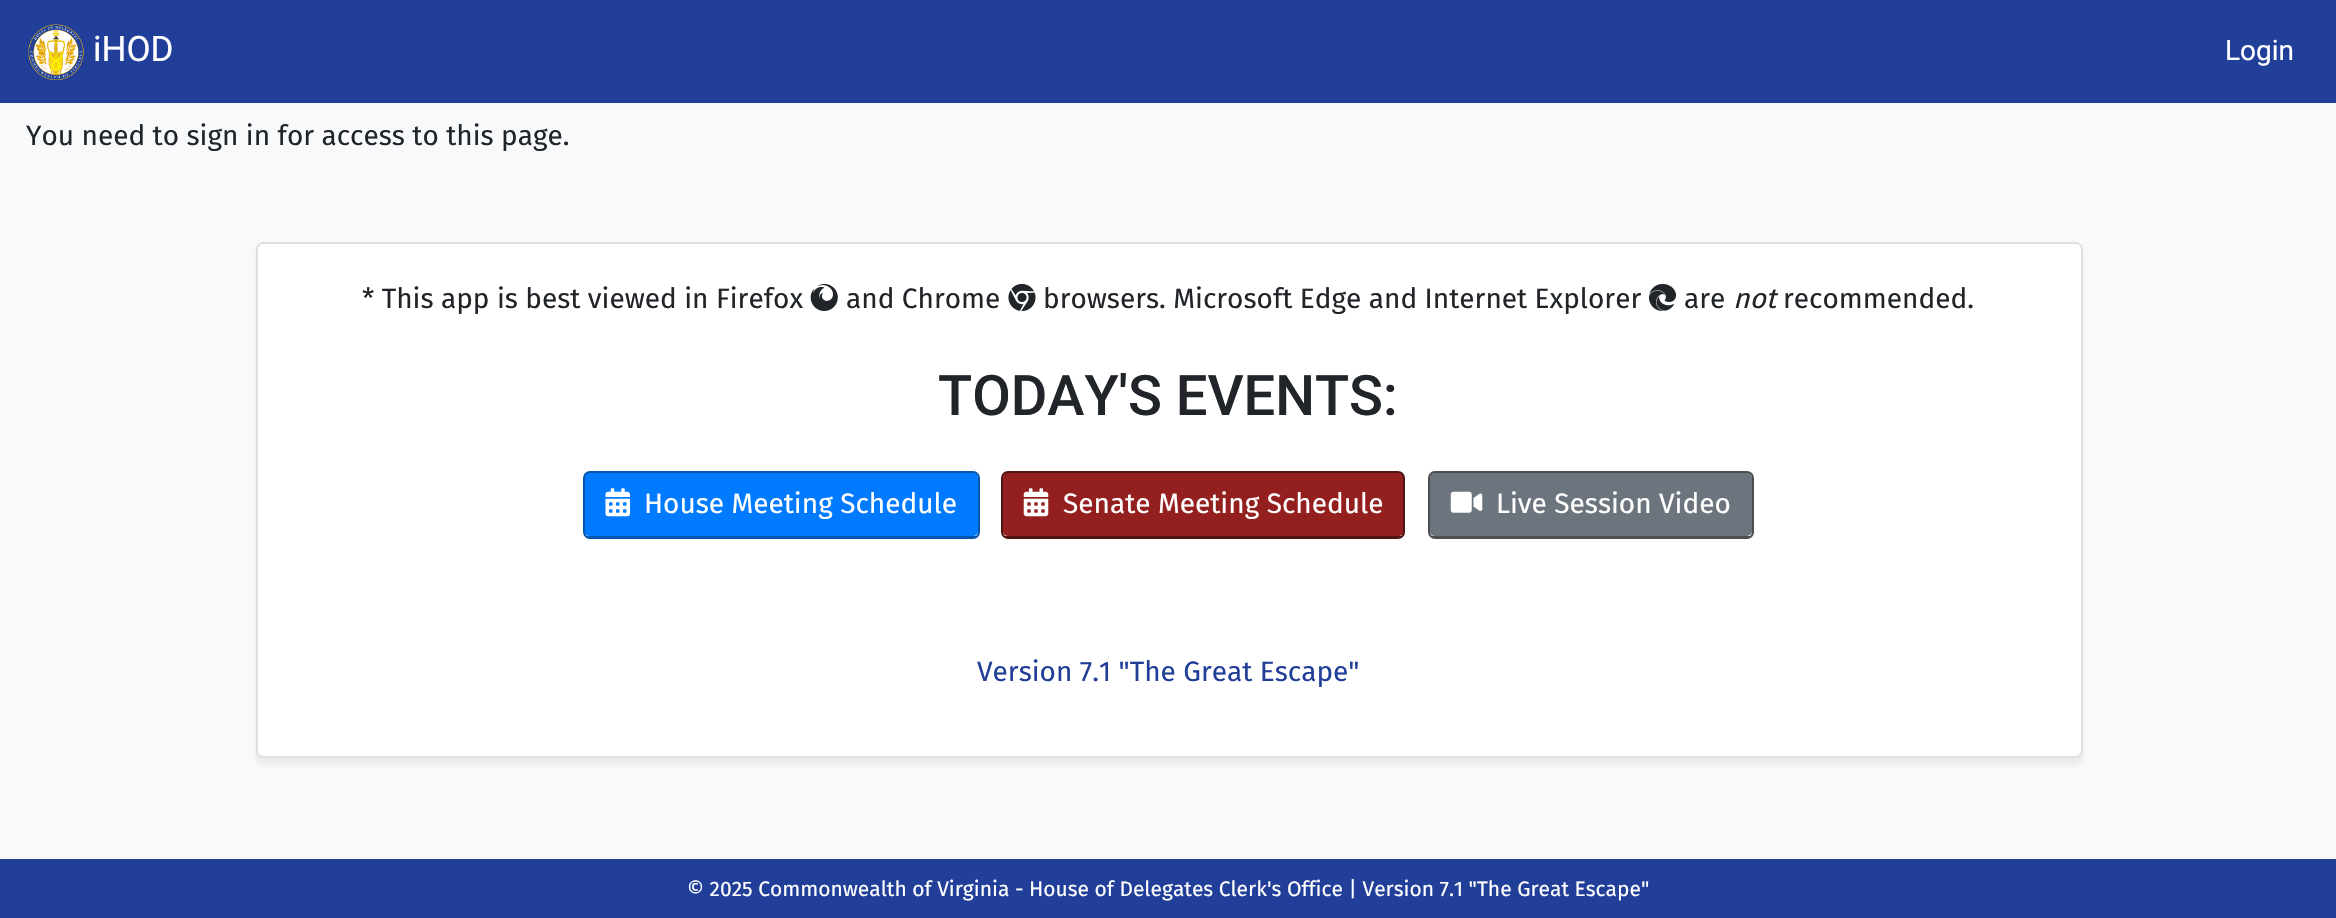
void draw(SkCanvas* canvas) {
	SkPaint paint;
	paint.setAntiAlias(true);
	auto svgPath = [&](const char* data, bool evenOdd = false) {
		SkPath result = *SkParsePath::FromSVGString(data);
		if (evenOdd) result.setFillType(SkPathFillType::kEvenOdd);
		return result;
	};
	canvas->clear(0xfff8f9fa);
	paint.setColor(0xff213f99);
	canvas->drawRect(SkRect::MakeXYWH(0, 0, 2336, 103), paint);
	canvas->drawImageRect(SkImages::DeferredFromEncodedData(SkData::MakeFromFileName("img1.png")), SkRect::MakeXYWH(28, 24, 56, 56), SkSamplingOptions());
	SkFont f1(fontMgr->matchFamilyStyle("Roboto", SkFontStyle::Normal()), 35);
	f1.setSubpixel(true);
	paint.setColor(0xffffffff);
	canvas->drawString("iHOD", 93, 61, f1, paint);
	SkFont f2(fontMgr->matchFamilyStyle("Roboto", SkFontStyle::Normal()), 28);
	f2.setSubpixel(true);
	canvas->drawString("Login", 2225, 60, f2, paint);
	SkFont f3(fontMgr->matchFamilyStyle("Fira Sans", SkFontStyle::Normal()), 28);
	f3.setSubpixel(true);
	paint.setColor(0xff212529);
	canvas->drawString("You need to sign in for access to this page.", 26, 145, f3, paint);
	paint.setColor(0x0d000000);
	paint.setMaskFilter(SkMaskFilter::MakeBlur(kNormal_SkBlurStyle, 2));
	canvas->drawRoundRect(SkRect::MakeXYWH(256, 249, 1827, 516), 7, 7, paint);
	paint.setMaskFilter(nullptr);
	paint.setColor(0xffffffff);
	canvas->drawRoundRect(SkRect::MakeXYWH(256, 242, 1827, 516), 7, 7, paint);
	paint.setStroke(true);
	paint.setStrokeWidth(2);
	paint.setColor(0x1f000000);
	canvas->drawRoundRect(SkRect::MakeXYWH(257, 243, 1825, 514), 6, 6, paint);
	paint.setStroke(false);
	paint.setColor(0xff212529);
	canvas->drawString("* This app is best viewed in Firefox", 362, 308, f3, paint);
	canvas->drawImageRect(SkImages::DeferredFromEncodedData(SkData::MakeFromFileName("img2.png")), SkRect::MakeXYWH(810, 284, 28, 27), SkSamplingOptions());
	canvas->drawString("and Chrome", 846, 308, f3, paint);
	canvas->drawImageRect(SkImages::DeferredFromEncodedData(SkData::MakeFromFileName("img3.png")), SkRect::MakeXYWH(1008, 283, 28, 28), SkSamplingOptions());
	canvas->drawString("browsers. Microsoft Edge and Internet Explorer", 1043, 308, f3, paint);
	canvas->drawImageRect(SkImages::DeferredFromEncodedData(SkData::MakeFromFileName("img4.png")), SkRect::MakeXYWH(1648, 283, 29, 28), SkSamplingOptions());
	canvas->drawString("are", 1684, 308, f3, paint);
	SkFont f4(fontMgr->matchFamilyStyle("Fira Sans", SkFontStyle::Italic()), 28);
	f4.setSubpixel(true);
	canvas->drawString("not", 1733, 308, f4, paint);
	canvas->drawString("recommended.", 1783, 308, f3, paint);
	SkFont f5(fontMgr->matchFamilyStyle("Roboto", SkFontStyle(500, SkFontStyle::kNormal_Width, SkFontStyle::kUpright_Slant)), 56);
	f5.setSubpixel(true);
	canvas->drawString("TODAY'S EVENTS:", 938, 415, f5, paint);
	paint.setColor(0xff007bff);
	canvas->drawPath(svgPath("M590 472H973C976 472 978 475 978 478V532C978 534 976 536 973 536H590C587 536 584 534 584 532V478C584 475 587 472 590 472Z"), paint);
	paint.setStroke(true);
	paint.setColor(0xff0556ad);
	canvas->drawRoundRect(SkRect::MakeXYWH(584, 472, 395, 66), 6, 6, paint);
	paint.setStroke(false);
	canvas->drawRect(SkRect::MakeXYWH(586, 536, 391, 2), paint);
	canvas->drawImageRect(SkImages::DeferredFromEncodedData(SkData::MakeFromFileName("img5.png")), SkRect::MakeXYWH(605, 488, 25, 29), SkSamplingOptions());
	paint.setColor(0xffffffff);
	canvas->drawString("House Meeting Schedule", 644, 513, f3, paint);
	paint.setColor(0xff93201e);
	canvas->drawPath(svgPath("M1008 472H1398C1401 472 1404 475 1404 478V532C1404 534 1401 536 1398 536H1008C1005 536 1003 534 1003 532V478C1003 475 1005 472 1008 472Z"), paint);
	paint.setStroke(true);
	paint.setColor(0xff501514);
	canvas->drawRoundRect(SkRect::MakeXYWH(1002, 472, 402, 66), 6, 6, paint);
	paint.setStroke(false);
	canvas->drawRect(SkRect::MakeXYWH(1005, 536, 397, 2), paint);
	canvas->drawImageRect(SkImages::DeferredFromEncodedData(SkData::MakeFromFileName("img6.png")), SkRect::MakeXYWH(1023, 488, 26, 29), SkSamplingOptions());
	paint.setColor(0xffffffff);
	canvas->drawString("Senate Meeting Schedule", 1063, 513, f3, paint);
	paint.setColor(0xff6c757d);
	canvas->drawPath(svgPath("M1435 472H1746C1749 472 1752 475 1752 478V532C1752 534 1749 536 1746 536H1435C1432 536 1430 534 1430 532V478C1430 475 1432 472 1435 472Z"), paint);
	paint.setStroke(true);
	paint.setColor(0xff4d4e4f);
	canvas->drawRoundRect(SkRect::MakeXYWH(1429, 472, 324, 66), 6, 6, paint);
	paint.setStroke(false);
	canvas->drawRect(SkRect::MakeXYWH(1432, 536, 318, 1), paint);
	canvas->drawImageRect(SkImages::DeferredFromEncodedData(SkData::MakeFromFileName("img7.png")), SkRect::MakeXYWH(1450, 491, 33, 22), SkSamplingOptions());
	paint.setColor(0xffffffff);
	canvas->drawString("Live Session Video", 1496, 513, f3, paint);
	paint.setColor(0xff213f99);
	canvas->drawString("Version 7.1 \"The Great Escape\"", 977, 681, f3, paint);
	canvas->drawRect(SkRect::MakeXYWH(0, 859, 2336, 59), paint);
	SkFont f6(fontMgr->matchFamilyStyle("Fira Sans", SkFontStyle::Normal()), 21);
	f6.setSubpixel(true);
	paint.setColor(0xffffffff);
	canvas->drawString("© 2025 Commonwealth of Virginia - House of Delegates Clerk's Office | Version 7.1 \"The Great Escape\"", 687, 896, f6, paint);
}
